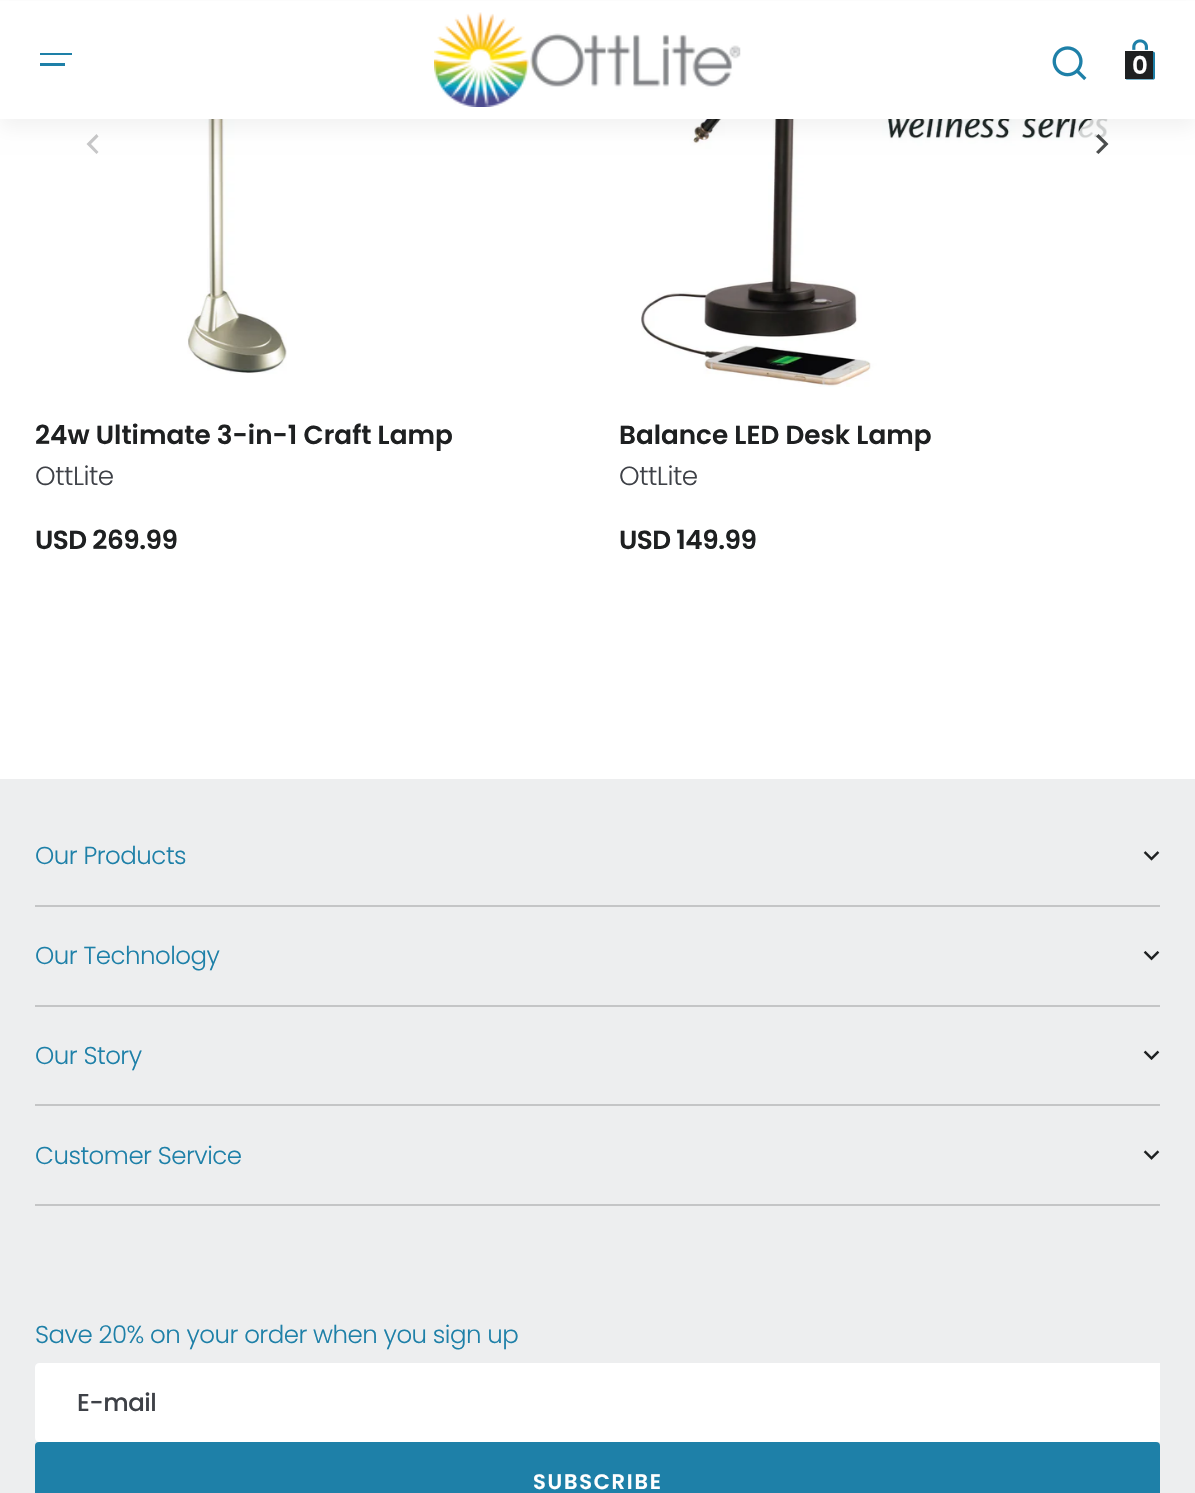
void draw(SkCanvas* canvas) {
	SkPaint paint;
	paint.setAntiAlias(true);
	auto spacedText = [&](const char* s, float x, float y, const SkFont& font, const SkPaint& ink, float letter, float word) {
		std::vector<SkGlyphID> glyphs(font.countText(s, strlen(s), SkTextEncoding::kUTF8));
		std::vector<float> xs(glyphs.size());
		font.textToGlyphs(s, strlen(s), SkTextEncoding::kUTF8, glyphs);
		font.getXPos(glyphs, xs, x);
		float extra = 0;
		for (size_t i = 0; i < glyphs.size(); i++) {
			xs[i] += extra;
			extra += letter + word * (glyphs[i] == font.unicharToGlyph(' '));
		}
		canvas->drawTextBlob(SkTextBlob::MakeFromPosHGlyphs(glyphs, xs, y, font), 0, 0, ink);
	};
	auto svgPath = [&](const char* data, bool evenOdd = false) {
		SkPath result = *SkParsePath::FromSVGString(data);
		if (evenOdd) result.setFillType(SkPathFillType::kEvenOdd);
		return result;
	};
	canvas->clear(0xffffffff);
	paint.setColor(0xffc7c7c8);
	canvas->drawPath(svgPath("M91 144L98.5 152L96.5 154L86.5 144L96.5 134L98.5 136.5Z"), paint);
	canvas->drawImageRect(SkImages::DeferredFromEncodedData(SkData::MakeFromFileName("img5.png")), SkRect::MakeXYWH(641, 119, 479, 268), SkSamplingOptions());
	paint.setColor(0xccffffff);
	canvas->drawCircle(1102.5, 143.5, 26.5, paint);
	paint.setColor(0xcc1e2021);
	canvas->drawPath(svgPath("M1104 144L1096 136.5L1098.5 134L1108.5 144L1098.5 154L1096 152Z"), paint);
	canvas->drawImageRect(SkImages::DeferredFromEncodedData(SkData::MakeFromFileName("img4.png")), SkRect::MakeXYWH(187, 119, 100, 255), SkSamplingOptions());
	paint.setColor(0x0d010101);
	paint.setMaskFilter(SkMaskFilter::MakeBlur(kNormal_SkBlurStyle, 9));
	canvas->drawRect(SkRect::MakeXYWH(0, 9, 1195, 119), paint);
	paint.setMaskFilter(nullptr);
	paint.setColor(0xffffffff);
	canvas->drawRect(SkRect::MakeXYWH(0, 1, 1195, 118), paint);
	paint.setColor(0xff1e80a8);
	canvas->drawRect(SkRect::MakeXYWH(40, 53, 32, 2), paint);
	canvas->drawRect(SkRect::MakeXYWH(40, 63, 25, 3), paint);
	canvas->drawImageRect(SkImages::DeferredFromEncodedData(SkData::MakeFromFileName("img1.png")), SkRect::MakeXYWH(434, 12, 307, 95), SkSamplingOptions());
	canvas->drawImageRect(SkImages::DeferredFromEncodedData(SkData::MakeFromFileName("img2.png")), SkRect::MakeXYWH(1052, 46, 35, 35), SkSamplingOptions());
	canvas->drawImageRect(SkImages::DeferredFromEncodedData(SkData::MakeFromFileName("img3.png")), SkRect::MakeXYWH(1125, 39, 30, 41), SkSamplingOptions());
	paint.setColor(0xff1e2021);
	canvas->drawRect(SkRect::MakeXYWH(1125, 51, 28, 28), paint);
	SkFont f1(fontMgr->matchFamilyStyle("Poppins", SkFontStyle(600, SkFontStyle::kNormal_Width, SkFontStyle::kUpright_Slant)), 24.5);
	f1.setSubpixel(true);
	paint.setColor(0xffffffff);
	canvas->drawString("0", 1132, 74, f1, paint);
	SkFont f2(fontMgr->matchFamilyStyle("Poppins", SkFontStyle(600, SkFontStyle::kNormal_Width, SkFontStyle::kUpright_Slant)), 26.25);
	f2.setSubpixel(true);
	paint.setColor(0xff1e2021);
	canvas->drawString("24w Ultimate 3-in-1 Craft Lamp", 35, 444, f2, paint);
	SkFont f3(fontMgr->matchFamilyStyle("Poppins", SkFontStyle(300, SkFontStyle::kNormal_Width, SkFontStyle::kUpright_Slant)), 26.25);
	f3.setSubpixel(true);
	paint.setColor(0xff3e4147);
	spacedText("OttLite", 35, 485, f3, paint, -0.5, 0);
	paint.setColor(0xff1e2021);
	spacedText("USD 269.99", 35, 549, f2, paint, -0.5, 0);
	canvas->drawString("Balance LED Desk Lamp", 619, 444, f2, paint);
	paint.setColor(0xff3e4147);
	spacedText("OttLite", 619, 485, f3, paint, -0.5, 0);
	paint.setColor(0xff1e2021);
	spacedText("USD 149.99", 619, 549, f2, paint, -0.5, 0);
	paint.setColor(0xffedeeef);
	canvas->drawRect(SkRect::MakeXYWH(0, 779, 1195, 714), paint);
	paint.setColor(0xffc4c5c6);
	canvas->drawRect(SkRect::MakeXYWH(35, 905, 1125, 2), paint);
	SkFont f4(fontMgr->matchFamilyStyle("Poppins", SkFontStyle(300, SkFontStyle::kNormal_Width, SkFontStyle::kUpright_Slant)), 24.5);
	f4.setSubpixel(true);
	paint.setColor(0xff1e80a8);
	spacedText("Our Products", 35, 864, f4, paint, -0.5, 0);
	canvas->drawImageRect(SkImages::DeferredFromEncodedData(SkData::MakeFromFileName("img6.png")), SkRect::MakeXYWH(1143, 851, 17, 10), SkSamplingOptions());
	paint.setColor(0xffc4c5c6);
	canvas->drawRect(SkRect::MakeXYWH(35, 1005, 1125, 2), paint);
	paint.setColor(0xff1e80a8);
	spacedText("Our Technology", 35, 964, f4, paint, -0.5, 0);
	canvas->drawImageRect(SkImages::DeferredFromEncodedData(SkData::MakeFromFileName("img7.png")), SkRect::MakeXYWH(1143, 951, 17, 10), SkSamplingOptions());
	paint.setColor(0xffc4c5c6);
	canvas->drawRect(SkRect::MakeXYWH(35, 1104, 1125, 2), paint);
	paint.setColor(0xff1e80a8);
	spacedText("Our Story", 35, 1064, f4, paint, -0.5, 0);
	canvas->drawImageRect(SkImages::DeferredFromEncodedData(SkData::MakeFromFileName("img8.png")), SkRect::MakeXYWH(1143, 1050, 17, 10), SkSamplingOptions());
	paint.setColor(0xffc4c5c6);
	canvas->drawRect(SkRect::MakeXYWH(35, 1204, 1125, 2), paint);
	paint.setColor(0xff1e80a8);
	spacedText("Customer Service", 35, 1164, f4, paint, -0.5, 0);
	canvas->drawImageRect(SkImages::DeferredFromEncodedData(SkData::MakeFromFileName("img9.png")), SkRect::MakeXYWH(1143, 1150, 17, 10), SkSamplingOptions());
	spacedText("Save 20% on your order when you sign up", 35, 1343, f4, paint, -0.5, 0);
	paint.setColor(0xffffffff);
	canvas->drawPath(svgPath("M39 1363H1160V1442H39C37 1442 35 1440 35 1438V1367C35 1365 37 1363 39 1363Z"), paint);
	SkFont f5(fontMgr->matchFamilyStyle("Poppins", SkFontStyle(500, SkFontStyle::kNormal_Width, SkFontStyle::kUpright_Slant)), 24.5);
	f5.setSubpixel(true);
	paint.setColor(0xff3e4147);
	spacedText("E-mail", 77, 1411, f5, paint, -0.5, 0);
	paint.setColor(0xff1e80a8);
	canvas->drawRoundRect(SkRect::MakeXYWH(35, 1442, 1125, 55), 4, 4, paint);
	SkFont f6(fontMgr->matchFamilyStyle("Poppins", SkFontStyle(600, SkFontStyle::kNormal_Width, SkFontStyle::kUpright_Slant)), 21);
	f6.setSubpixel(true);
	paint.setColor(0xffffffff);
	spacedText("SUBSCRIBE", 533, 1489, f6, paint, 1.75, 0);
}
